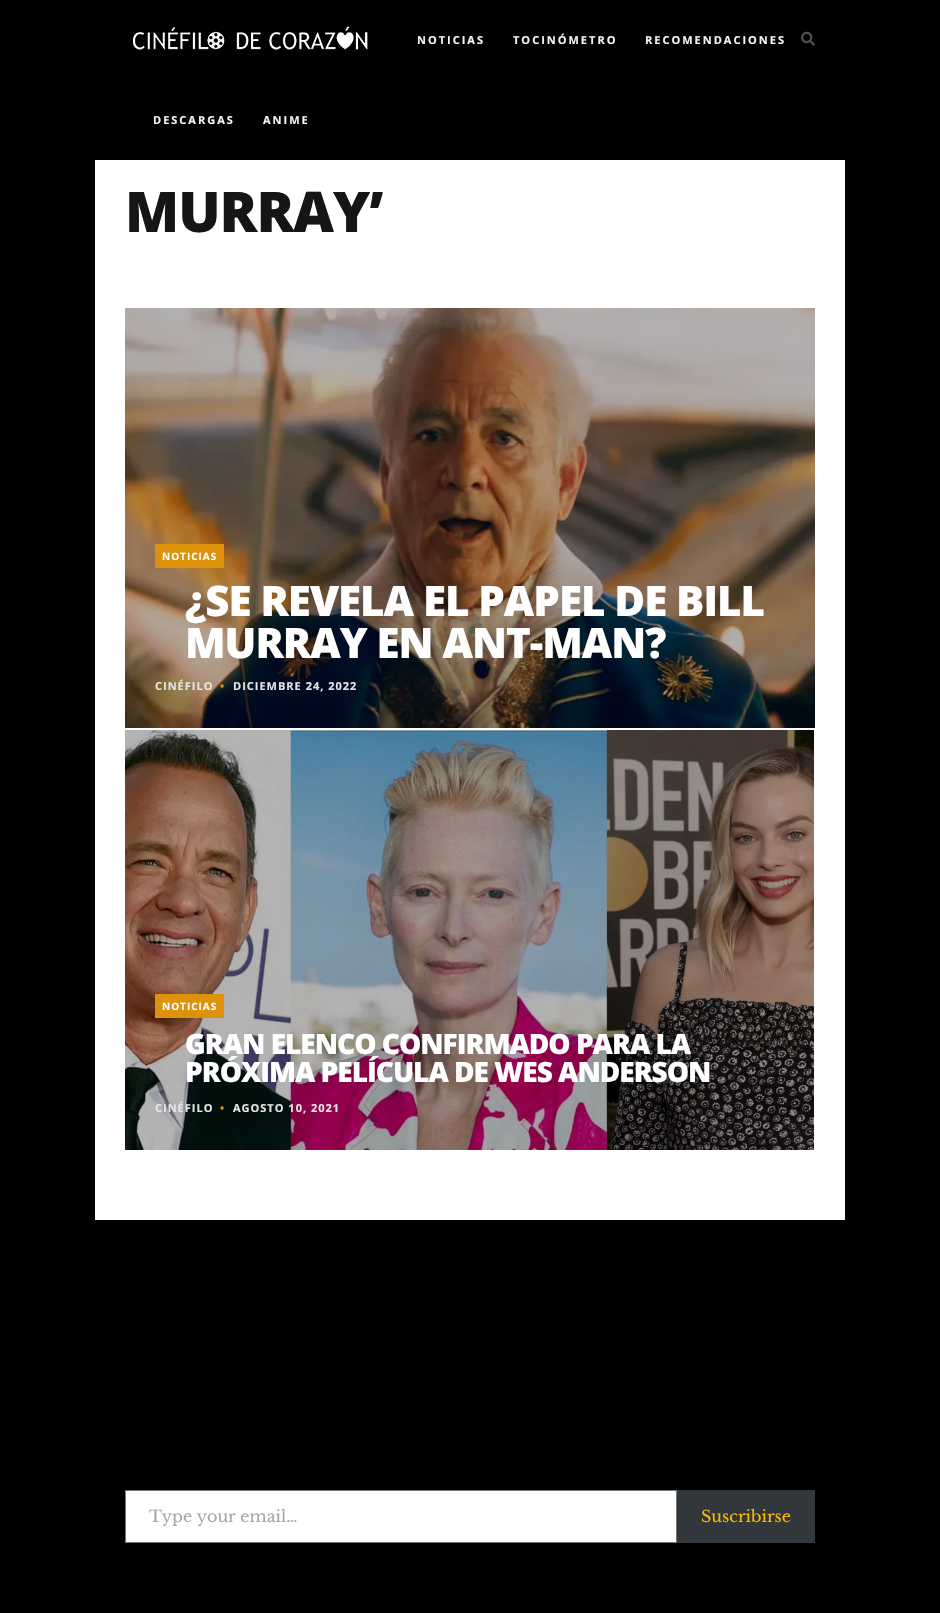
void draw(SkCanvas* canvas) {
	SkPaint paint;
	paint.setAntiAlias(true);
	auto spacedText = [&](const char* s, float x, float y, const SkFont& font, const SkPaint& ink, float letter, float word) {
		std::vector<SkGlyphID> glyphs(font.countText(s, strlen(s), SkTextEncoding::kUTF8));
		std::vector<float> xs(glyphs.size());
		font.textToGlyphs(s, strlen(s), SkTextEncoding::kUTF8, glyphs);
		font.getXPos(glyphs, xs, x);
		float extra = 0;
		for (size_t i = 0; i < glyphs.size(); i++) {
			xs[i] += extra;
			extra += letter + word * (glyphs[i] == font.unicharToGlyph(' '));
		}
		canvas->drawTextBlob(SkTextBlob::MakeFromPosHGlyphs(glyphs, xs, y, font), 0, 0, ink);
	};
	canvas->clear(0xff000000);
	canvas->drawImageRect(SkImages::DeferredFromEncodedData(SkData::MakeFromFileName("img1.png")), SkRect::MakeXYWH(133, 26, 235, 24), SkSamplingOptions());
	canvas->drawImageRect(SkImages::DeferredFromEncodedData(SkData::MakeFromFileName("img2.png")), SkRect::MakeXYWH(801, 31, 14, 15), SkSamplingOptions());
	SkFont f1(fontMgr->matchFamilyStyle("Open Sans", SkFontStyle::Bold()), 11);
	f1.setSubpixel(true);
	paint.setColor(0xfff5f5f5);
	spacedText("NOTICIAS", 417, 44, f1, paint, 2, 0);
	spacedText("TOCINÓMETRO", 513, 44, f1, paint, 2, 0);
	spacedText("RECOMENDACIONES", 645, 44, f1, paint, 2, 0);
	spacedText("DESCARGAS", 153, 124, f1, paint, 2, 0);
	spacedText("ANIME", 263, 124, f1, paint, 2, 0);
	paint.setColor(0xffffffff);
	canvas->drawRect(SkRect::MakeXYWH(95, 160, 750, 1060), paint);
	SkFont f2(fontMgr->matchFamilyStyle("Open Sans", SkFontStyle(800, SkFontStyle::kNormal_Width, SkFontStyle::kUpright_Slant)), 56);
	f2.setSubpixel(true);
	paint.setColor(0xff151515);
	spacedText("MURRAY’", 125, 232, f2, paint, -1, 0);
	canvas->drawImageRect(SkImages::DeferredFromEncodedData(SkData::MakeFromFileName("img3.png")), SkRect::MakeXYWH(125, 308, 690, 420), SkSamplingOptions());
	paint.setColor(0xffde910b);
	canvas->drawRect(SkRect::MakeXYWH(155, 544, 69, 24), paint);
	SkFont f3(fontMgr->matchFamilyStyle("Open Sans", SkFontStyle::Bold()), 10);
	f3.setSubpixel(true);
	paint.setColor(0xffffffff);
	spacedText("NOTICIAS", 162, 560, f3, paint, 1, 0);
	SkFont f4(fontMgr->matchFamilyStyle("Open Sans", SkFontStyle(800, SkFontStyle::kNormal_Width, SkFontStyle::kUpright_Slant)), 42);
	f4.setSubpixel(true);
	spacedText("¿SE REVELA EL PAPEL DE BILL", 185, 616, f4, paint, -1, 0);
	spacedText("MURRAY EN ANT-MAN?", 185, 658, f4, paint, -1, 0);
	paint.setColor(0xffe5e5e5);
	spacedText("CINÉFILO", 155, 690, f1, paint, 1, 0);
	paint.setColor(0xffde910b);
	spacedText("•", 220, 690, f1, paint, 1, 0);
	paint.setColor(0xffe5e5e5);
	spacedText("DICIEMBRE 24, 2022", 233, 690, f1, paint, 1, 0);
	canvas->drawImageRect(SkImages::DeferredFromEncodedData(SkData::MakeFromFileName("img4.png")), SkRect::MakeXYWH(125, 730, 689, 420), SkSamplingOptions());
	paint.setColor(0xffde910b);
	canvas->drawRect(SkRect::MakeXYWH(155, 994, 69, 24), paint);
	paint.setColor(0xffffffff);
	spacedText("NOTICIAS", 162, 1010, f3, paint, 1, 0);
	SkFont f5(fontMgr->matchFamilyStyle("Open Sans", SkFontStyle(800, SkFontStyle::kNormal_Width, SkFontStyle::kUpright_Slant)), 28);
	f5.setSubpixel(true);
	spacedText("GRAN ELENCO CONFIRMADO PARA LA", 185, 1054, f5, paint, -1, 0);
	spacedText("PRÓXIMA PELÍCULA DE WES ANDERSON", 185, 1082, f5, paint, -1, 0);
	paint.setColor(0xffe5e5e5);
	spacedText("CINÉFILO", 155, 1112, f1, paint, 1, 0);
	paint.setColor(0xffde910b);
	spacedText("•", 220, 1112, f1, paint, 1, 0);
	paint.setColor(0xffe5e5e5);
	spacedText("AGOSTO 10, 2021", 233, 1112, f1, paint, 1, 0);
	paint.setColor(0xffffffff);
	canvas->drawRect(SkRect::MakeXYWH(125.5, 1490.5, 551, 52), paint);
	paint.setStroke(true);
	paint.setStrokeWidth(1);
	paint.setColor(0xff767676);
	canvas->drawRect(SkRect::MakeXYWH(125.5, 1490.5, 551, 52), paint);
	canvas->save();
	canvas->clipRect(SkRect::MakeXYWH(149, 1506, 504, 20));
	SkFont f6(fontMgr->matchFamilyStyle("Libre Baskerville", SkFontStyle::Normal()), 16);
	f6.setSubpixel(true);
	paint.setStroke(false);
	paint.setColor(0xffa8a8a8);
	canvas->drawString("Type your email…", 149, 1522, f6, paint);
	canvas->restore();
	paint.setColor(0xff32373c);
	canvas->drawRect(SkRect::MakeXYWH(677, 1490, 138, 53), paint);
	paint.setColor(0xfffcb900);
	canvas->drawString("Suscribirse", 701, 1522, f6, paint);
}
